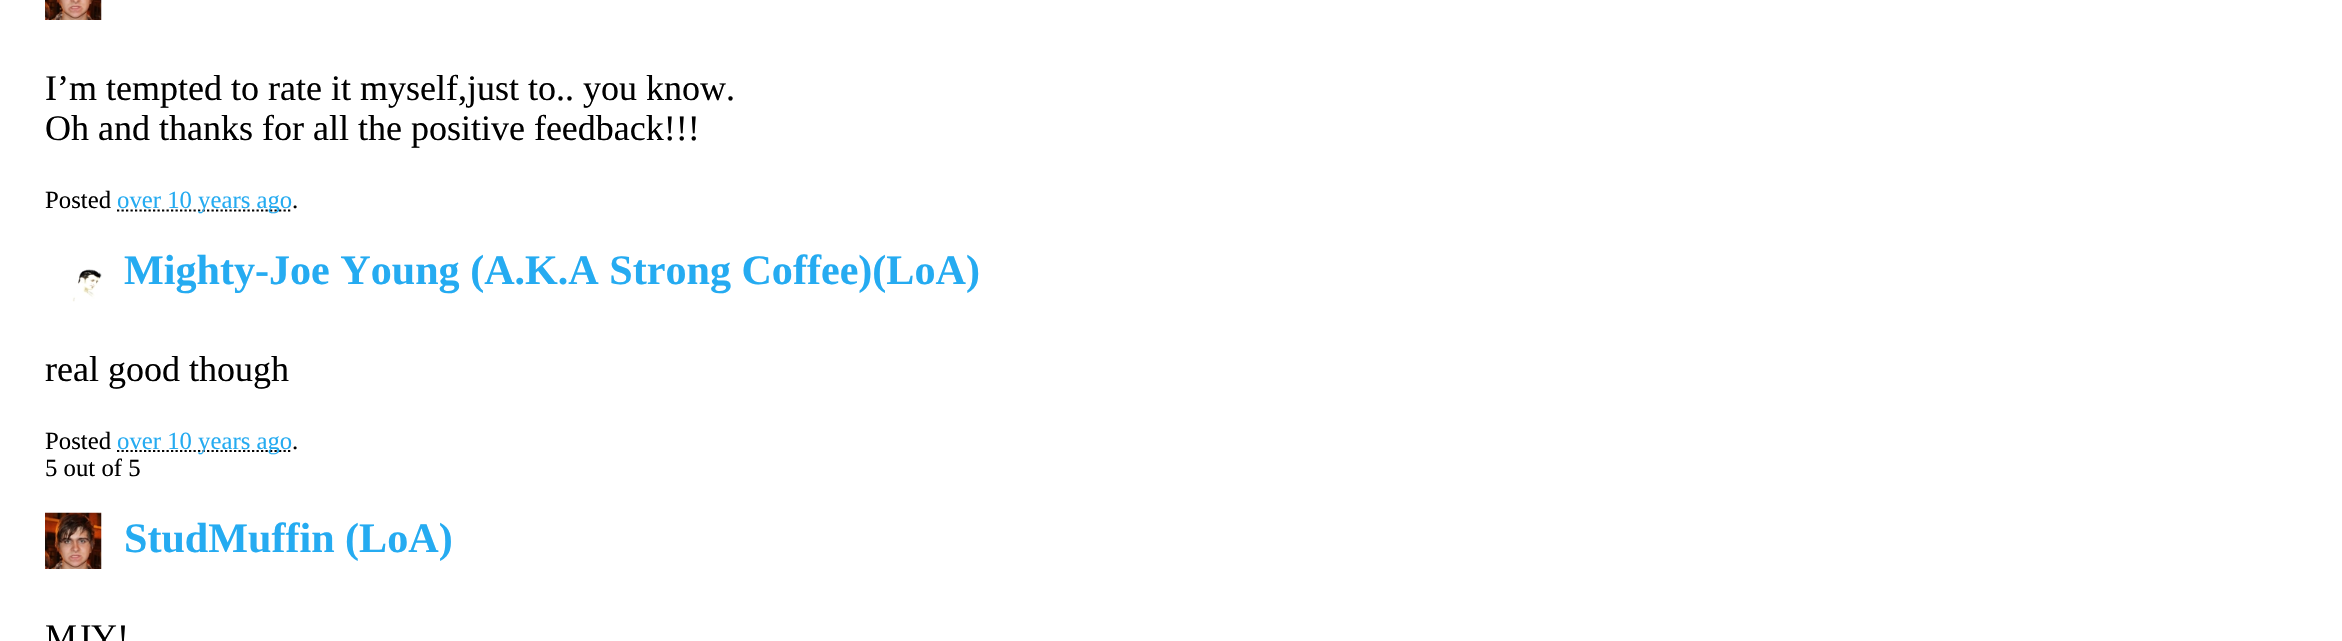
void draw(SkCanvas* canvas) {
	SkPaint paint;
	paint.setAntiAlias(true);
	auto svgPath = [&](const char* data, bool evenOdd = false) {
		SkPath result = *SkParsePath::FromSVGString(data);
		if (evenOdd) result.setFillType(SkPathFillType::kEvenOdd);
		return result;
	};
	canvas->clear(0xffffffff);
	canvas->drawImageRect(SkImages::DeferredFromEncodedData(SkData::MakeFromFileName("img1.png")), SkRect::MakeXYWH(45, 0, 57, 20), SkSamplingOptions());
	SkFont f1(fontMgr->matchFamilyStyle("Liberation Serif", SkFontStyle::Normal()), 36);
	f1.setSubpixel(true);
	paint.setColor(0xff000000);
	canvas->drawString("I’m tempted to rate it myself,just to.. you know.", 45, 100, f1, paint);
	canvas->drawString("Oh and thanks for all the positive feedback!!!", 45, 140, f1, paint);
	SkFont f2(fontMgr->matchFamilyStyle("Liberation Serif", SkFontStyle::Normal()), 24.75);
	f2.setSubpixel(true);
	canvas->drawString("Posted", 45, 208, f2, paint);
	paint.setStroke(true);
	paint.setStrokeWidth(2.2);
	paint.setPathEffect(SkDashPathEffect::Make({{2.25f, 2.25f}}, 0));
	canvas->drawPath(svgPath("M117 210.5H292.5"), paint);
	paint.setPathEffect(nullptr);
	paint.setStroke(false);
	paint.setColor(0xff25abf1);
	canvas->drawString("over 10 years ago", 117, 208, f2, paint);
	paint.setColor(0xff000000);
	canvas->drawString(".", 292, 208, f2, paint);
	canvas->drawImageRect(SkImages::DeferredFromEncodedData(SkData::MakeFromFileName("img2.png")), SkRect::MakeXYWH(72, 269, 30, 33), SkSamplingOptions());
	SkFont f3(fontMgr->matchFamilyStyle("Liberation Serif", SkFontStyle::Bold()), 42.1);
	f3.setSubpixel(true);
	paint.setColor(0xff25abf1);
	canvas->drawString("Mighty-Joe Young (A.K.A Strong Coffee)(LoA)", 124, 284, f3, paint);
	paint.setColor(0xff000000);
	canvas->drawString("real good though", 45, 381, f1, paint);
	canvas->drawString("Posted", 45, 449, f2, paint);
	paint.setStroke(true);
	paint.setPathEffect(SkDashPathEffect::Make({{2.25f, 2.25f}}, 0));
	canvas->drawPath(svgPath("M117 451H292.5"), paint);
	paint.setPathEffect(nullptr);
	paint.setStroke(false);
	paint.setColor(0xff25abf1);
	canvas->drawString("over 10 years ago", 117, 449, f2, paint);
	paint.setColor(0xff000000);
	canvas->drawString(".", 292, 449, f2, paint);
	canvas->drawString("5 out of 5", 45, 476, f2, paint);
	canvas->drawImageRect(SkImages::DeferredFromEncodedData(SkData::MakeFromFileName("img3.png")), SkRect::MakeXYWH(45, 512, 57, 57), SkSamplingOptions());
	paint.setColor(0xff25abf1);
	canvas->drawString("StudMuffin (LoA)", 124, 552, f3, paint);
	paint.setColor(0xff000000);
	canvas->drawString("MJY!", 45, 649, f1, paint);
}
